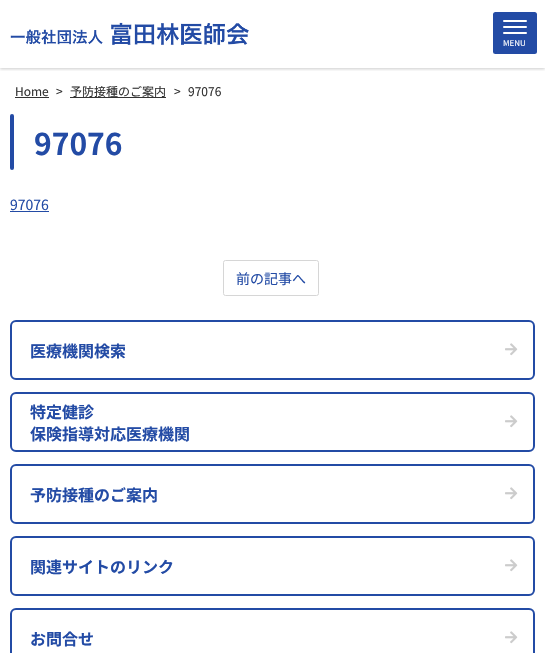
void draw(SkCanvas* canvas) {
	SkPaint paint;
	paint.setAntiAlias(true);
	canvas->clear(0xffffffff);
	canvas->save();
	canvas->clipRect(SkRect::MakeXYWH(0, 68, 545, 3));
	paint.setColor(0x33000000);
	paint.setMaskFilter(SkMaskFilter::MakeBlur(kNormal_SkBlurStyle, 1.5));
	canvas->drawRect(SkRect::MakeXYWH(0, 1, 545, 68), paint);
	paint.setMaskFilter(nullptr);
	canvas->restore();
	canvas->drawImageRect(SkImages::DeferredFromEncodedData(SkData::MakeFromFileName("img1.png")), SkRect::MakeXYWH(10, 22, 239, 23), SkSamplingOptions());
	paint.setColor(0xff234ba5);
	canvas->drawRoundRect(SkRect::MakeXYWH(493, 12, 44, 42), 2.5, 2.5, paint);
	paint.setColor(0xffffffff);
	canvas->drawRoundRect(SkRect::MakeXYWH(503, 20, 24, 2), 1, 1, paint);
	canvas->drawRoundRect(SkRect::MakeXYWH(503, 26, 24, 2), 1, 1, paint);
	canvas->drawRoundRect(SkRect::MakeXYWH(503, 32, 24, 2), 1, 1, paint);
	SkFont f1(fontMgr->matchFamilyStyle("Noto Sans JP", SkFontStyle::Normal()), 8);
	f1.setSubpixel(true);
	canvas->drawString("MENU", 503, 46, f1, paint);
	SkFont f2(fontMgr->matchFamilyStyle("Noto Sans JP", SkFontStyle::Normal()), 12);
	f2.setSubpixel(true);
	paint.setColor(0xff333333);
	canvas->drawString("Home", 15, 96, f2, paint);
	canvas->drawRect(SkRect::MakeXYWH(15, 97, 34, 1), paint);
	canvas->drawString(">", 56, 96, f2, paint);
	canvas->drawString("予防接種のご案内", 70, 96, f2, paint);
	canvas->drawRect(SkRect::MakeXYWH(70, 97, 96, 1), paint);
	canvas->drawString(">", 174, 96, f2, paint);
	canvas->drawString("97076", 188, 96, f2, paint);
	paint.setColor(0xff234ba5);
	canvas->drawRoundRect(SkRect::MakeXYWH(10, 114, 4, 56), 2, 2, paint);
	SkFont f3(fontMgr->matchFamilyStyle("Noto Sans JP", SkFontStyle::Bold()), 30);
	f3.setSubpixel(true);
	canvas->drawString("97076", 34, 155, f3, paint);
	SkFont f4(fontMgr->matchFamilyStyle("Noto Sans JP", SkFontStyle::Normal()), 14);
	f4.setSubpixel(true);
	canvas->drawString("97076", 10, 210, f4, paint);
	canvas->drawRect(SkRect::MakeXYWH(10, 211, 39, 1), paint);
	paint.setStroke(true);
	paint.setStrokeWidth(1);
	paint.setColor(0xffd6d6d6);
	canvas->drawRoundRect(SkRect::MakeXYWH(223.5, 260.5, 95, 35), 2, 2, paint);
	paint.setStroke(false);
	paint.setColor(0xff234ba5);
	canvas->drawString("前の記事へ", 236, 284, f4, paint);
	paint.setStroke(true);
	paint.setStrokeWidth(2);
	canvas->drawRoundRect(SkRect::MakeXYWH(11, 321, 523, 58), 5, 5, paint);
	SkFont f5(fontMgr->matchFamilyStyle("Noto Sans JP", SkFontStyle::Bold()), 16);
	f5.setSubpixel(true);
	paint.setStroke(false);
	canvas->drawString("医療機関検索", 30, 357, f5, paint);
	canvas->drawImageRect(SkImages::DeferredFromEncodedData(SkData::MakeFromFileName("img2.png")), SkRect::MakeXYWH(505, 343, 13, 13), SkSamplingOptions());
	paint.setStroke(true);
	canvas->drawRoundRect(SkRect::MakeXYWH(11, 393, 523, 58), 5, 5, paint);
	paint.setStroke(false);
	canvas->drawString("特定健診", 30, 418, f5, paint);
	canvas->drawString("保険指導対応医療機関", 30, 440, f5, paint);
	canvas->drawImageRect(SkImages::DeferredFromEncodedData(SkData::MakeFromFileName("img2.png")), SkRect::MakeXYWH(505, 415, 13, 13), SkSamplingOptions());
	paint.setStroke(true);
	canvas->drawRoundRect(SkRect::MakeXYWH(11, 465, 523, 58), 5, 5, paint);
	paint.setStroke(false);
	canvas->drawString("予防接種のご案内", 30, 501, f5, paint);
	canvas->drawImageRect(SkImages::DeferredFromEncodedData(SkData::MakeFromFileName("img2.png")), SkRect::MakeXYWH(505, 487, 13, 13), SkSamplingOptions());
	paint.setStroke(true);
	canvas->drawRoundRect(SkRect::MakeXYWH(11, 537, 523, 58), 5, 5, paint);
	paint.setStroke(false);
	canvas->drawString("関連サイトのリンク", 30, 573, f5, paint);
	canvas->drawImageRect(SkImages::DeferredFromEncodedData(SkData::MakeFromFileName("img2.png")), SkRect::MakeXYWH(505, 559, 13, 13), SkSamplingOptions());
	paint.setStroke(true);
	canvas->drawRoundRect(SkRect::MakeXYWH(11, 609, 523, 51), 5, 5, paint);
	paint.setStroke(false);
	canvas->drawString("お問合せ", 30, 645, f5, paint);
	canvas->drawImageRect(SkImages::DeferredFromEncodedData(SkData::MakeFromFileName("img2.png")), SkRect::MakeXYWH(505, 631, 13, 13), SkSamplingOptions());
}
